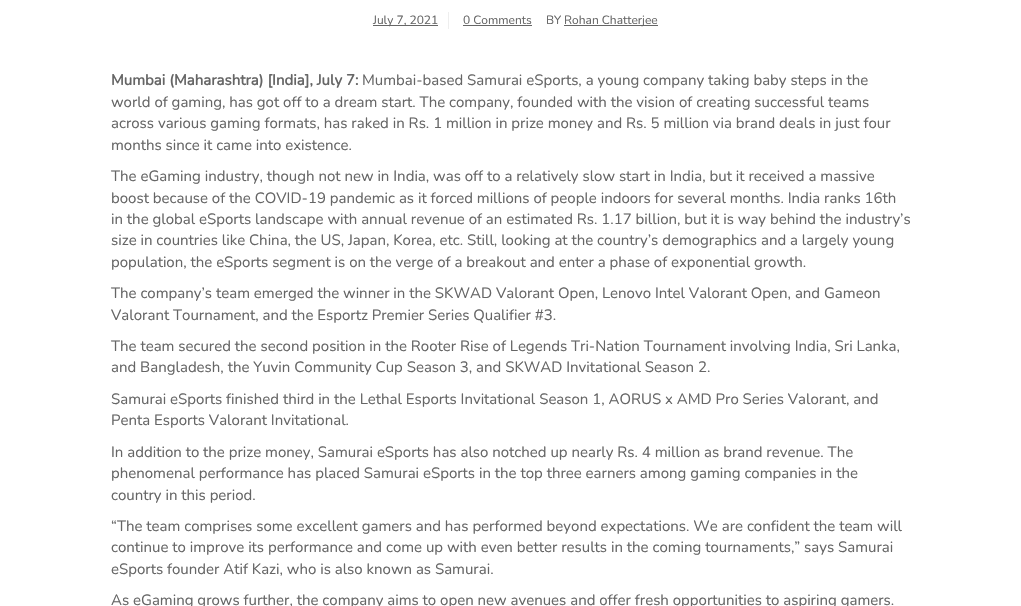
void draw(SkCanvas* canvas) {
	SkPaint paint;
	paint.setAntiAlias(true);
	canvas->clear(0xffffffff);
	paint.setColor(0xffeeeeee);
	canvas->drawRect(SkRect::MakeXYWH(448, 12, 1, 17), paint);
	paint.setColor(0xff666666);
	canvas->drawRect(SkRect::MakeXYWH(373, 25, 65, 1), paint);
	SkFont f1(fontMgr->matchFamilyStyle("Nunito", SkFontStyle::Normal()), 12);
	f1.setSubpixel(true);
	canvas->drawString("July 7, 2021", 373, 24, f1, paint);
	canvas->drawString("0 Comments", 463, 24, f1, paint);
	canvas->drawRect(SkRect::MakeXYWH(463, 25, 69, 1), paint);
	canvas->drawString("BY", 546, 24, f1, paint);
	canvas->drawRect(SkRect::MakeXYWH(564, 25, 94, 1), paint);
	canvas->drawString("Rohan Chatterjee", 564, 24, f1, paint);
	SkFont f2(fontMgr->matchFamilyStyle("Nunito", SkFontStyle::Bold()), 15);
	f2.setSubpixel(true);
	canvas->drawString("Mumbai (Maharashtra) [India], July 7:", 111, 85, f2, paint);
	SkFont f3(fontMgr->matchFamilyStyle("Nunito", SkFontStyle::Normal()), 15);
	f3.setSubpixel(true);
	canvas->drawString("Mumbai-based Samurai eSports, a young company taking baby steps in the", 362, 85, f3, paint);
	canvas->drawString("world of gaming, has got off to a dream start. The company, founded with the vision of creating successful teams", 111, 107, f3, paint);
	canvas->drawString("across various gaming formats, has raked in Rs. 1 million in prize money and Rs. 5 million via brand deals in just four", 111, 128, f3, paint);
	canvas->drawString("months since it came into existence.", 111, 150, f3, paint);
	canvas->drawString("The eGaming industry, though not new in India, was off to a relatively slow start in India, but it received a massive", 111, 181, f3, paint);
	canvas->drawString("boost because of the COVID-19 pandemic as it forced millions of people indoors for several months. India ranks 16th", 111, 203, f3, paint);
	canvas->drawString("in the global eSports landscape with annual revenue of an estimated Rs. 1.17 billion, but it is way behind the industry’s", 111, 224, f3, paint);
	canvas->drawString("size in countries like China, the US, Japan, Korea, etc. Still, looking at the country’s demographics and a largely young", 111, 245, f3, paint);
	canvas->drawString("population, the eSports segment is on the verge of a breakout and enter a phase of exponential growth.", 111, 267, f3, paint);
	canvas->drawString("The company’s team emerged the winner in the SKWAD Valorant Open, Lenovo Intel Valorant Open, and Gameon", 111, 298, f3, paint);
	canvas->drawString("Valorant Tournament, and the Esportz Premier Series Qualifier #3.", 111, 320, f3, paint);
	canvas->drawString("The team secured the second position in the Rooter Rise of Legends Tri-Nation Tournament involving India, Sri Lanka,", 111, 351, f3, paint);
	canvas->drawString("and Bangladesh, the Yuvin Community Cup Season 3, and SKWAD Invitational Season 2.", 111, 372, f3, paint);
	canvas->drawString("Samurai eSports finished third in the Lethal Esports Invitational Season 1, AORUS x AMD Pro Series Valorant, and", 111, 404, f3, paint);
	canvas->drawString("Penta Esports Valorant Invitational.", 111, 425, f3, paint);
	canvas->drawString("In addition to the prize money, Samurai eSports has also notched up nearly Rs. 4 million as brand revenue. The", 111, 457, f3, paint);
	canvas->drawString("phenomenal performance has placed Samurai eSports in the top three earners among gaming companies in the", 111, 478, f3, paint);
	canvas->drawString("country in this period.", 111, 500, f3, paint);
	canvas->drawString("“The team comprises some excellent gamers and has performed beyond expectations. We are confident the team will", 111, 531, f3, paint);
	canvas->drawString("continue to improve its performance and come up with even better results in the coming tournaments,” says Samurai", 111, 552, f3, paint);
	canvas->drawString("eSports founder Atif Kazi, who is also known as Samurai.", 111, 574, f3, paint);
	canvas->drawString("As eGaming grows further, the company aims to open new avenues and offer fresh opportunities to aspiring gamers.", 111, 605, f3, paint);
}
